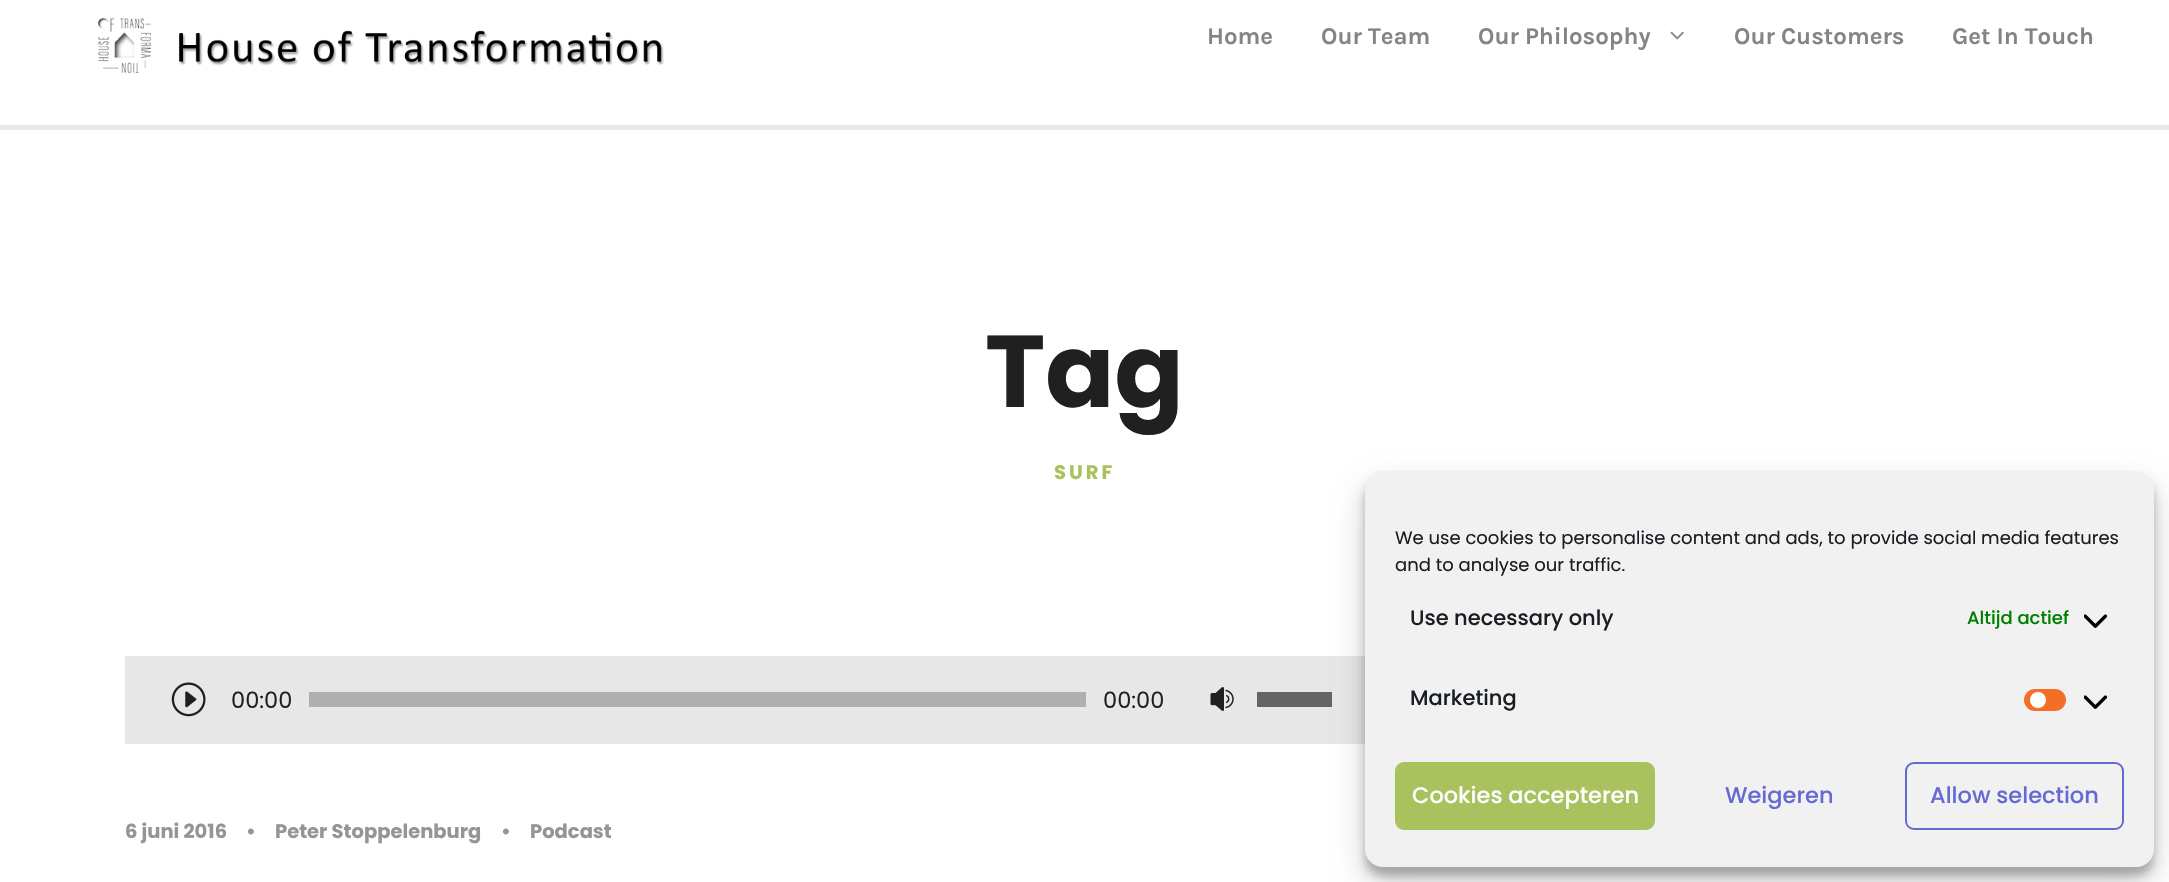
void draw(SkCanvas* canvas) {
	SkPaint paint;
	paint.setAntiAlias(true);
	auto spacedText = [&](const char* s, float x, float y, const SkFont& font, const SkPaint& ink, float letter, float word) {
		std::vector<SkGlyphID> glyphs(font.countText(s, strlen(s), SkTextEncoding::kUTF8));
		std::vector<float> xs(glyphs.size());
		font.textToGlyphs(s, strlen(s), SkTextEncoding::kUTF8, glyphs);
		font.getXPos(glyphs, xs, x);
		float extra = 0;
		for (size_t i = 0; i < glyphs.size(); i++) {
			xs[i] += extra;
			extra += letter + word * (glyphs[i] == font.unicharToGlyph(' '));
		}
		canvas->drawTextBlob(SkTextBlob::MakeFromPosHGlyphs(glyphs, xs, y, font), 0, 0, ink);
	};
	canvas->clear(0xffffffff);
	paint.setColor(0xffe8e8e8);
	canvas->drawRect(SkRect::MakeXYWH(0, 125, 2169, 5), paint);
	canvas->drawImageRect(SkImages::DeferredFromEncodedData(SkData::MakeFromFileName("img1.png")), SkRect::MakeXYWH(98, 18, 566, 55), SkSamplingOptions());
	SkFont f1(fontMgr->matchFamilyStyle("Karla", SkFontStyle::Bold()), 24);
	f1.setSubpixel(true);
	paint.setColor(0xff848484);
	canvas->drawString("Home", 1207, 44, f1, paint);
	canvas->drawString("Our Team", 1321, 44, f1, paint);
	canvas->drawString("Our Philosophy", 1478, 44, f1, paint);
	canvas->drawImageRect(SkImages::DeferredFromEncodedData(SkData::MakeFromFileName("img2.png")), SkRect::MakeXYWH(1670, 31, 14, 9), SkSamplingOptions());
	canvas->drawString("Our Customers", 1734, 44, f1, paint);
	canvas->drawString("Get In Touch", 1952, 44, f1, paint);
	SkFont f2(fontMgr->matchFamilyStyle("Poppins", SkFontStyle::Bold()), 102);
	f2.setSubpixel(true);
	paint.setColor(0xff202020);
	canvas->drawString("Tag", 985, 407, f2, paint);
	SkFont f3(fontMgr->matchFamilyStyle("Poppins", SkFontStyle::Bold()), 19.5);
	f3.setSubpixel(true);
	paint.setColor(0xffa9c25d);
	spacedText("SURF", 1054, 479, f3, paint, 3, 0);
	paint.setColor(0xffe7e7e7);
	canvas->drawRect(SkRect::MakeXYWH(125, 656, 1240, 88), paint);
	canvas->drawImageRect(SkImages::DeferredFromEncodedData(SkData::MakeFromFileName("img3.png")), SkRect::MakeXYWH(171, 682, 35, 35), SkSamplingOptions());
	SkFont f4(fontMgr->matchFamilyStyle("Poppins", SkFontStyle::Normal()), 22.5);
	f4.setSubpixel(true);
	paint.setColor(0xff202020);
	canvas->drawString("00:00", 231, 708, f4, paint);
	paint.setColor(0xffafafaf);
	canvas->drawRect(SkRect::MakeXYWH(309, 692, 777, 15), paint);
	paint.setColor(0xff202020);
	canvas->drawString("00:00", 1103, 708, f4, paint);
	canvas->drawImageRect(SkImages::DeferredFromEncodedData(SkData::MakeFromFileName("img4.png")), SkRect::MakeXYWH(1210, 687, 24, 24), SkSamplingOptions());
	paint.setColor(0xff646464);
	canvas->drawRect(SkRect::MakeXYWH(1257, 692, 75, 15), paint);
	paint.setColor(0xff959595);
	canvas->drawString("6 juni 2016", 125, 838, f3, paint);
	canvas->drawString("•", 246, 838, f3, paint);
	canvas->drawString("Peter Stoppelenburg", 275, 838, f3, paint);
	canvas->drawString("•", 501, 838, f3, paint);
	canvas->drawString("Podcast", 530, 838, f3, paint);
	paint.setColor(0x3b000000);
	paint.setMaskFilter(SkMaskFilter::MakeBlur(kNormal_SkBlurStyle, 4.5));
	canvas->drawRoundRect(SkRect::MakeXYWH(1365, 480, 789, 396), 18, 18, paint);
	paint.setMaskFilter(nullptr);
	paint.setColor(0x30000000);
	paint.setMaskFilter(SkMaskFilter::MakeBlur(kNormal_SkBlurStyle, 15));
	canvas->drawRoundRect(SkRect::MakeXYWH(1365, 486, 789, 396), 18, 18, paint);
	paint.setMaskFilter(nullptr);
	paint.setColor(0xfff1f1f1);
	canvas->drawRoundRect(SkRect::MakeXYWH(1365, 471, 789, 396), 18, 18, paint);
	SkFont f5(fontMgr->matchFamilyStyle("Poppins", SkFontStyle::Normal()), 18);
	f5.setSubpixel(true);
	paint.setColor(0xff191e23);
	canvas->drawString("We use cookies to personalise content and ads, to provide social media features", 1395, 544, f5, paint);
	canvas->drawString("and to analyse our traffic.", 1395, 571, f5, paint);
	SkFont f6(fontMgr->matchFamilyStyle("Poppins", SkFontStyle(500, SkFontStyle::kNormal_Width, SkFontStyle::kUpright_Slant)), 21);
	f6.setSubpixel(true);
	canvas->drawString("Use necessary only", 1410, 625, f6, paint);
	SkFont f7(fontMgr->matchFamilyStyle("Poppins", SkFontStyle(500, SkFontStyle::kNormal_Width, SkFontStyle::kUpright_Slant)), 18);
	f7.setSubpixel(true);
	paint.setColor(0xff008000);
	canvas->drawString("Altijd actief", 1967, 624, f7, paint);
	canvas->drawImageRect(SkImages::DeferredFromEncodedData(SkData::MakeFromFileName("img5.png")), SkRect::MakeXYWH(2084, 614, 24, 14), SkSamplingOptions());
	paint.setColor(0xff191e23);
	canvas->drawString("Marketing", 1410, 705, f6, paint);
	paint.setColor(0xfff56e28);
	canvas->drawRoundRect(SkRect::MakeXYWH(2024, 689, 42, 22), 11, 11, paint);
	paint.setColor(0xffffffff);
	canvas->drawCircle(2038, 700, 8, paint);
	canvas->drawImageRect(SkImages::DeferredFromEncodedData(SkData::MakeFromFileName("img5.png")), SkRect::MakeXYWH(2084, 695, 24, 14), SkSamplingOptions());
	paint.setColor(0xffa9c25d);
	canvas->drawRoundRect(SkRect::MakeXYWH(1396, 763, 258, 66), 8, 8, paint);
	paint.setStroke(true);
	paint.setStrokeWidth(2);
	canvas->drawRoundRect(SkRect::MakeXYWH(1396, 763, 258, 66), 8, 8, paint);
	SkFont f8(fontMgr->matchFamilyStyle("Poppins", SkFontStyle(500, SkFontStyle::kNormal_Width, SkFontStyle::kUpright_Slant)), 22.5);
	f8.setSubpixel(true);
	paint.setStroke(false);
	paint.setColor(0xffffffff);
	canvas->drawString("Cookies accepteren", 1412, 803, f8, paint);
	paint.setColor(0xff6569d3);
	canvas->drawString("Weigeren", 1725, 803, f8, paint);
	paint.setStroke(true);
	canvas->drawRoundRect(SkRect::MakeXYWH(1906, 763, 217, 66), 8, 8, paint);
	paint.setStroke(false);
	canvas->drawString("Allow selection", 1930, 803, f8, paint);
}
